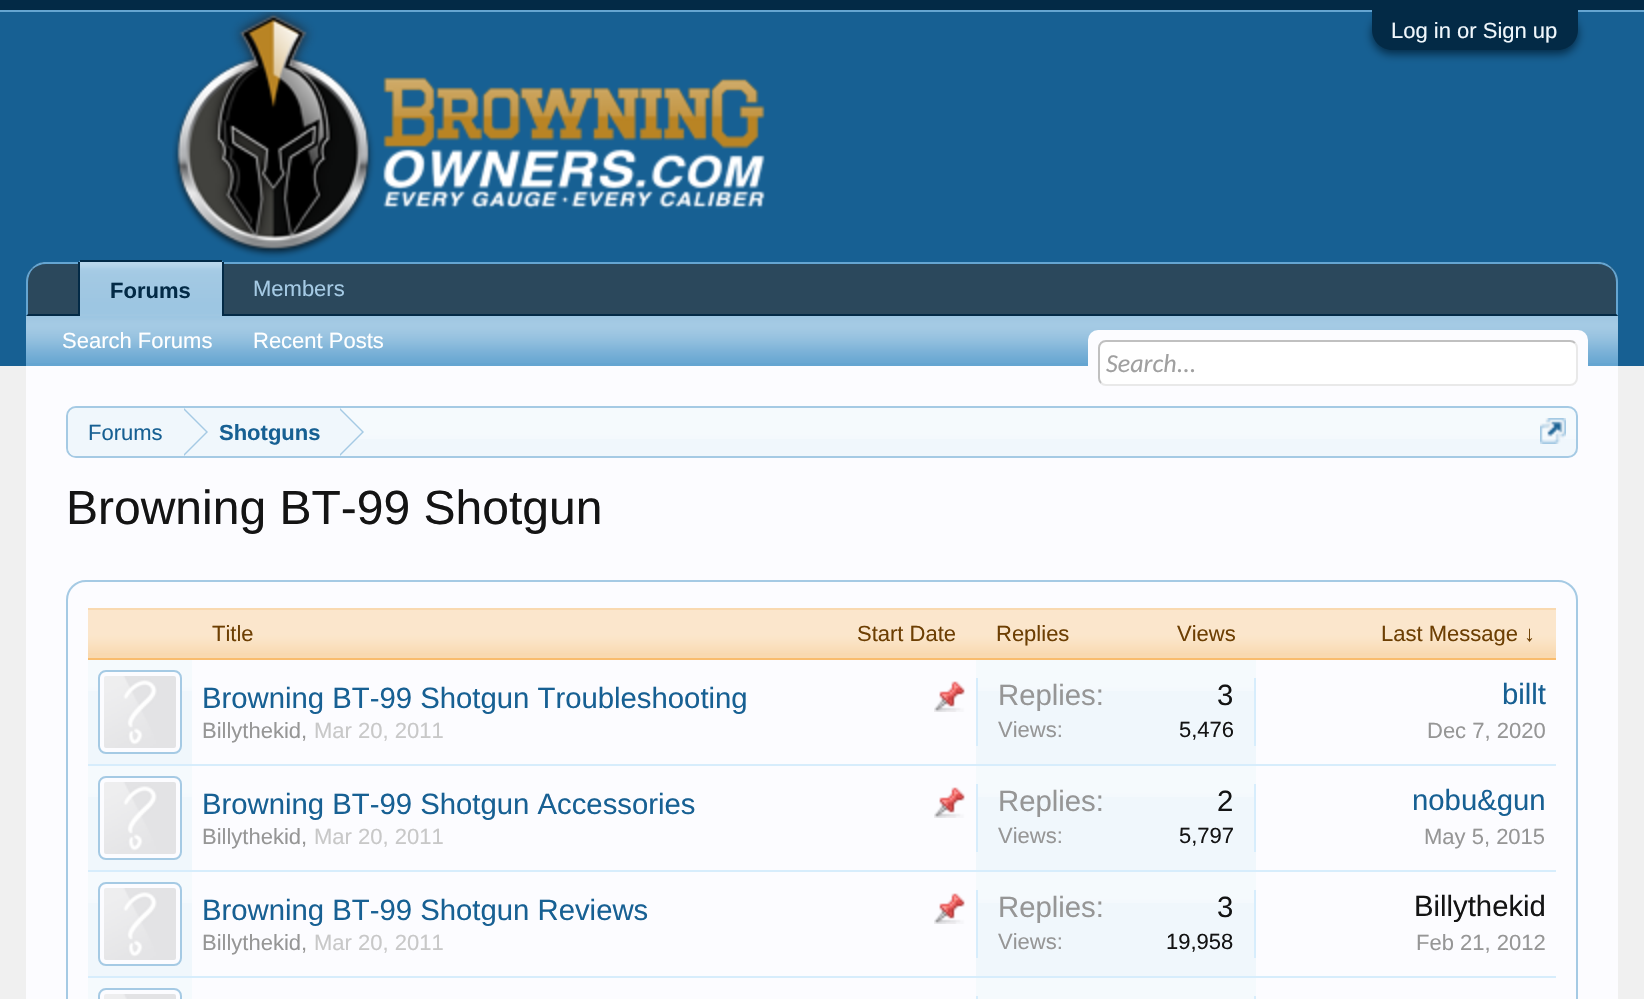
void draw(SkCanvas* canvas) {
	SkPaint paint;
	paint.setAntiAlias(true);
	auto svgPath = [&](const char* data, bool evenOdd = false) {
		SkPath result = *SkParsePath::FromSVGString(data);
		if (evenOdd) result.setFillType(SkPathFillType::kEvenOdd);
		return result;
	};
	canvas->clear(0xfff0f0f0);
	paint.setColor(0xff032a46);
	canvas->drawRect(SkRect::MakeXYWH(0, 0, 1644, 10), paint);
	paint.setColor(0xff65a5d1);
	canvas->drawRect(SkRect::MakeXYWH(0, 10, 1644, 2), paint);
	paint.setColor(0xff176093);
	canvas->drawRect(SkRect::MakeXYWH(0, 12, 1644, 354), paint);
	paint.setColor(0xff032a46);
	paint.setMaskFilter(SkMaskFilter::MakeBlur(kNormal_SkBlurStyle, 5));
	canvas->drawRoundRect(SkRect::MakeXYWH(1372, 14, 206, 40), 20, 20, paint);
	paint.setMaskFilter(nullptr);
	canvas->drawPath(svgPath("M1372 10H1578V30C1578 41 1569 50 1558 50H1392C1381 50 1372 41 1372 30Z"), paint);
	SkFont f1(fontMgr->matchFamilyStyle("Liberation Sans", SkFontStyle::Normal()), 22);
	f1.setSubpixel(true);
	paint.setColor(0xfff0f7fc);
	canvas->drawString("Log in or Sign up", 1391, 38, f1, paint);
	canvas->drawImageRect(SkImages::DeferredFromEncodedData(SkData::MakeFromFileName("img1.png")), SkRect::MakeXYWH(172, 12, 593, 246), SkSamplingOptions());
	paint.setColor(0xff2b485c);
	canvas->drawPath(svgPath("M46 262H1598C1609 262 1618 271 1618 282V316H26V282C26 271 35 262 46 262Z"), paint);
	paint.setColor(0xff65a5d1);
	canvas->drawPath(svgPath("M46 262C40 262 36 264 32 268L33 269C36 266 41 264 46 264H1598C1603 264 1608 266 1611 269L1612 268C1608 264 1604 262 1598 262Z"), paint);
	canvas->drawPath(svgPath("M1618 316V282C1618 276 1616 272 1612 268L1611 269C1614 272 1616 277 1616 282V314Z"), paint);
	paint.setColor(0xff032a46);
	canvas->drawPath(svgPath("M1618 316L1616 314H28L26 316Z"), paint);
	paint.setColor(0xff65a5d1);
	canvas->drawPath(svgPath("M26 316L28 314V282C28 277 30 272 33 269L32 268C28 272 26 276 26 282Z"), paint);
	paint.setColor(0xffa5cae4);
	canvas->drawString("Members", 253, 296, f1, paint);
	paint.setColor(0xff65a5d1);
	canvas->drawPath(svgPath("M82 260H220C222 260 224 262 224 264V316H78V264C78 262 80 260 82 260Z"), paint);
	canvas->drawImageRect(SkImages::DeferredFromEncodedData(SkData::MakeFromFileName("img2.png")), SkRect::MakeXYWH(80, 262, 142, 54), SkSamplingOptions());
	paint.setColor(0xff032a46);
	canvas->drawRect(SkRect::MakeXYWH(80, 260, 142, 2), paint);
	canvas->drawRect(SkRect::MakeXYWH(222, 262, 2, 54), paint);
	canvas->drawRect(SkRect::MakeXYWH(78, 262, 2, 54), paint);
	SkFont f2(fontMgr->matchFamilyStyle("Liberation Sans", SkFontStyle::Bold()), 22);
	f2.setSubpixel(true);
	canvas->drawString("Forums", 110, 298, f2, paint);
	paint.setColor(0xff65a5d1);
	canvas->drawRect(SkRect::MakeXYWH(26, 316, 1592, 50), paint);
	canvas->drawImageRect(SkImages::DeferredFromEncodedData(SkData::MakeFromFileName("img3.png")), SkRect::MakeXYWH(26, 316, 1592, 47), SkSamplingOptions());
	paint.setColor(0xffffffff);
	canvas->drawString("Search Forums", 62, 348, f1, paint);
	canvas->drawString("Recent Posts", 253, 348, f1, paint);
	paint.setColor(0xfffcfcff);
	canvas->drawRect(SkRect::MakeXYWH(26, 366, 1592, 633), paint);
	canvas->drawRoundRect(SkRect::MakeXYWH(1088, 330, 500, 56), 10, 10, paint);
	paint.setColor(0xffffffff);
	canvas->drawRoundRect(SkRect::MakeXYWH(1098, 340, 480, 46), 8, 8, paint);
	paint.setStroke(true);
	paint.setStrokeWidth(2);
	paint.setColor(0xffe9e9e9);
	canvas->drawPath(svgPath("M1575 343C1576.5 344.5 1577 346 1577 348V378C1577 380 1576.5 381.5 1575 383C1573.5 384.5 1572 385 1570 385H1106C1104 385 1102.5 384.5 1101 383"), paint);
	paint.setColor(0xffc0c0c0);
	canvas->drawPath(svgPath("M1101 383C1099.5 381.5 1099 380 1099 378V348C1099 346 1099.5 344.5 1101 343C1102.5 341.5 1104 341 1106 341H1570C1572 341 1573.5 341.5 1575 343"), paint);
	SkFont f3(fontMgr->matchFamilyStyle("Carlito", SkFontStyle::Italic()), 26);
	f3.setSubpixel(true);
	paint.setStroke(false);
	paint.setColor(0xffa0a0a0);
	canvas->drawString("Search...", 1106, 372, f3, paint);
	paint.setColor(0xfff0f7fc);
	canvas->drawRoundRect(SkRect::MakeXYWH(66, 406, 1512, 52), 10, 10, paint);
	canvas->drawImageRect(SkImages::DeferredFromEncodedData(SkData::MakeFromFileName("img4.png")), SkRect::MakeXYWH(66, 408, 1512, 31), SkSamplingOptions());
	paint.setStroke(true);
	paint.setColor(0xffa5cae4);
	canvas->drawRoundRect(SkRect::MakeXYWH(67, 407, 1510, 50), 9, 9, paint);
	canvas->save();
	canvas->clipPath(svgPath("M76 408H1568C1572.5 408 1576 411.5 1576 416V448C1576 452.5 1572.5 456 1568 456H76C71.5 456 68 452.5 68 448V416C68 411.5 71.5 408 76 408Z"), true);
	paint.setStroke(false);
	paint.setColor(0xfff0f7fc);
	canvas->drawPath(svgPath("M78 408H184V458H78C72.5 458 68 453.5 68 448V418C68 412.5 72.5 408 78 408Z"), paint);
	canvas->restore();
	paint.setColor(0xff176093);
	canvas->drawString("Forums", 88, 440, f1, paint);
	paint.setColor(0xfff0f7fc);
	canvas->drawRect(SkRect::MakeXYWH(184, 408, 156, 31), paint);
	paint.setColor(0xffa5cae4);
	canvas->drawPath(svgPath("M184 456V408L208 432Z"), paint);
	paint.setColor(0xfff0f7fc);
	canvas->drawPath(svgPath("M182 456V408L206 432Z"), paint);
	paint.setColor(0xff176093);
	canvas->drawString("Shotguns", 219, 440, f2, paint);
	paint.setColor(0xffa5cae4);
	canvas->drawPath(svgPath("M340 456V408L364 432Z"), paint);
	paint.setColor(0xfff0f7fc);
	canvas->drawPath(svgPath("M338 456V408L362 432Z"), paint);
	canvas->drawImageRect(SkImages::DeferredFromEncodedData(SkData::MakeFromFileName("img5.png")), SkRect::MakeXYWH(1540, 418, 26, 26), SkSamplingOptions());
	SkFont f4(fontMgr->matchFamilyStyle("Liberation Sans", SkFontStyle::Normal()), 48);
	f4.setSubpixel(true);
	paint.setColor(0xff141414);
	canvas->drawString("Browning BT-99 Shotgun", 66, 524, f4, paint);
	paint.setStroke(true);
	paint.setColor(0xffa5cae4);
	canvas->drawRoundRect(SkRect::MakeXYWH(67, 581, 1510, 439), 19, 19, paint);
	paint.setStroke(false);
	paint.setColor(0xfff9d9b0);
	canvas->drawRect(SkRect::MakeXYWH(88, 608, 1468, 50), paint);
	canvas->drawImageRect(SkImages::DeferredFromEncodedData(SkData::MakeFromFileName("img6.png")), SkRect::MakeXYWH(88, 610, 1468, 43), SkSamplingOptions());
	paint.setColor(0xfff9bc6d);
	canvas->drawRect(SkRect::MakeXYWH(88, 658, 1468, 2), paint);
	paint.setColor(0xff6d3f03);
	canvas->drawString("Title", 212, 641, f1, paint);
	canvas->drawString("Start Date", 857, 641, f1, paint);
	canvas->drawString("Replies", 996, 641, f1, paint);
	canvas->drawString("Views", 1177, 641, f1, paint);
	canvas->drawString("Last Message ↓", 1381, 641, f1, paint);
	paint.setColor(0xffd7edfc);
	canvas->drawRect(SkRect::MakeXYWH(88, 764, 1468, 2), paint);
	paint.setColor(0xfff0f7fc);
	canvas->drawRect(SkRect::MakeXYWH(88, 660, 104, 104), paint);
	canvas->drawImageRect(SkImages::DeferredFromEncodedData(SkData::MakeFromFileName("img7.png")), SkRect::MakeXYWH(88, 660, 104, 31), SkSamplingOptions());
	paint.setColor(0xfffcfcff);
	canvas->drawRoundRect(SkRect::MakeXYWH(99, 671, 82, 82), 7, 7, paint);
	paint.setStroke(true);
	paint.setColor(0xffa5cae4);
	canvas->drawRoundRect(SkRect::MakeXYWH(99, 671, 82, 82), 7, 7, paint);
	canvas->drawImageRect(SkImages::DeferredFromEncodedData(SkData::MakeFromFileName("img8.png")), SkRect::MakeXYWH(104, 676, 72, 72), SkSamplingOptions());
	SkFont f5(fontMgr->matchFamilyStyle("Liberation Sans", SkFontStyle::Normal()), 29.3);
	f5.setSubpixel(true);
	paint.setStroke(false);
	paint.setColor(0xff176093);
	canvas->drawString("Browning BT-99 Shotgun Troubleshooting", 202, 708, f5, paint);
	canvas->drawImageRect(SkImages::DeferredFromEncodedData(SkData::MakeFromFileName("img9.png")), SkRect::MakeXYWH(934, 681, 31, 31), SkSamplingOptions());
	paint.setColor(0xff969696);
	canvas->drawString("Billythekid,", 202, 738, f1, paint);
	paint.setColor(0xffc8c8c8);
	canvas->drawString("Mar 20, 2011", 314, 738, f1, paint);
	paint.setColor(0xfff0f7fc);
	canvas->drawRect(SkRect::MakeXYWH(976, 660, 280, 104), paint);
	canvas->drawImageRect(SkImages::DeferredFromEncodedData(SkData::MakeFromFileName("img10.png")), SkRect::MakeXYWH(976, 660, 280, 31), SkSamplingOptions());
	paint.setColor(0xffd7edfc);
	canvas->drawRect(SkRect::MakeXYWH(1254, 678, 2, 68), paint);
	canvas->drawRect(SkRect::MakeXYWH(976, 678, 2, 68), paint);
	paint.setColor(0xff969696);
	canvas->drawString("Replies:", 998, 705, f5, paint);
	paint.setColor(0xff141414);
	canvas->drawString("3", 1217, 705, f5, paint);
	paint.setColor(0xff969696);
	canvas->drawString("Views:", 998, 737, f1, paint);
	paint.setColor(0xff141414);
	canvas->drawString("5,476", 1179, 737, f1, paint);
	paint.setColor(0xff176093);
	canvas->drawString("billt", 1502, 704, f5, paint);
	paint.setColor(0xff969696);
	canvas->drawString("Dec 7, 2020", 1427, 738, f1, paint);
	paint.setColor(0xffd7edfc);
	canvas->drawRect(SkRect::MakeXYWH(88, 870, 1468, 2), paint);
	paint.setColor(0xfff0f7fc);
	canvas->drawRect(SkRect::MakeXYWH(88, 766, 104, 104), paint);
	canvas->drawImageRect(SkImages::DeferredFromEncodedData(SkData::MakeFromFileName("img7.png")), SkRect::MakeXYWH(88, 766, 104, 31), SkSamplingOptions());
	paint.setColor(0xfffcfcff);
	canvas->drawRoundRect(SkRect::MakeXYWH(99, 777, 82, 82), 7, 7, paint);
	paint.setStroke(true);
	paint.setColor(0xffa5cae4);
	canvas->drawRoundRect(SkRect::MakeXYWH(99, 777, 82, 82), 7, 7, paint);
	canvas->drawImageRect(SkImages::DeferredFromEncodedData(SkData::MakeFromFileName("img8.png")), SkRect::MakeXYWH(104, 782, 72, 72), SkSamplingOptions());
	paint.setStroke(false);
	paint.setColor(0xff176093);
	canvas->drawString("Browning BT-99 Shotgun Accessories", 202, 814, f5, paint);
	canvas->drawImageRect(SkImages::DeferredFromEncodedData(SkData::MakeFromFileName("img9.png")), SkRect::MakeXYWH(934, 787, 31, 31), SkSamplingOptions());
	paint.setColor(0xff969696);
	canvas->drawString("Billythekid,", 202, 844, f1, paint);
	paint.setColor(0xffc8c8c8);
	canvas->drawString("Mar 20, 2011", 314, 844, f1, paint);
	paint.setColor(0xfff0f7fc);
	canvas->drawRect(SkRect::MakeXYWH(976, 766, 280, 104), paint);
	canvas->drawImageRect(SkImages::DeferredFromEncodedData(SkData::MakeFromFileName("img10.png")), SkRect::MakeXYWH(976, 766, 280, 31), SkSamplingOptions());
	paint.setColor(0xffd7edfc);
	canvas->drawRect(SkRect::MakeXYWH(1254, 784, 2, 68), paint);
	canvas->drawRect(SkRect::MakeXYWH(976, 784, 2, 68), paint);
	paint.setColor(0xff969696);
	canvas->drawString("Replies:", 998, 811, f5, paint);
	paint.setColor(0xff141414);
	canvas->drawString("2", 1217, 811, f5, paint);
	paint.setColor(0xff969696);
	canvas->drawString("Views:", 998, 843, f1, paint);
	paint.setColor(0xff141414);
	canvas->drawString("5,797", 1179, 843, f1, paint);
	paint.setColor(0xff176093);
	canvas->drawString("nobu&gun", 1412, 810, f5, paint);
	paint.setColor(0xff969696);
	canvas->drawString("May 5, 2015", 1424, 844, f1, paint);
	paint.setColor(0xffd7edfc);
	canvas->drawRect(SkRect::MakeXYWH(88, 976, 1468, 2), paint);
	paint.setColor(0xfff0f7fc);
	canvas->drawRect(SkRect::MakeXYWH(88, 872, 104, 104), paint);
	canvas->drawImageRect(SkImages::DeferredFromEncodedData(SkData::MakeFromFileName("img7.png")), SkRect::MakeXYWH(88, 872, 104, 31), SkSamplingOptions());
	paint.setColor(0xfffcfcff);
	canvas->drawRoundRect(SkRect::MakeXYWH(99, 883, 82, 82), 7, 7, paint);
	paint.setStroke(true);
	paint.setColor(0xffa5cae4);
	canvas->drawRoundRect(SkRect::MakeXYWH(99, 883, 82, 82), 7, 7, paint);
	canvas->drawImageRect(SkImages::DeferredFromEncodedData(SkData::MakeFromFileName("img8.png")), SkRect::MakeXYWH(104, 888, 72, 72), SkSamplingOptions());
	paint.setStroke(false);
	paint.setColor(0xff176093);
	canvas->drawString("Browning BT-99 Shotgun Reviews", 202, 920, f5, paint);
	canvas->drawImageRect(SkImages::DeferredFromEncodedData(SkData::MakeFromFileName("img9.png")), SkRect::MakeXYWH(934, 893, 31, 31), SkSamplingOptions());
	paint.setColor(0xff969696);
	canvas->drawString("Billythekid,", 202, 950, f1, paint);
	paint.setColor(0xffc8c8c8);
	canvas->drawString("Mar 20, 2011", 314, 950, f1, paint);
	paint.setColor(0xfff0f7fc);
	canvas->drawRect(SkRect::MakeXYWH(976, 872, 280, 104), paint);
	canvas->drawImageRect(SkImages::DeferredFromEncodedData(SkData::MakeFromFileName("img10.png")), SkRect::MakeXYWH(976, 872, 280, 31), SkSamplingOptions());
	paint.setColor(0xffd7edfc);
	canvas->drawRect(SkRect::MakeXYWH(1254, 890, 2, 68), paint);
	canvas->drawRect(SkRect::MakeXYWH(976, 890, 2, 68), paint);
	paint.setColor(0xff969696);
	canvas->drawString("Replies:", 998, 917, f5, paint);
	paint.setColor(0xff141414);
	canvas->drawString("3", 1217, 917, f5, paint);
	paint.setColor(0xff969696);
	canvas->drawString("Views:", 998, 949, f1, paint);
	paint.setColor(0xff141414);
	canvas->drawString("19,958", 1166, 949, f1, paint);
	canvas->drawString("Billythekid", 1414, 916, f5, paint);
	paint.setColor(0xff969696);
	canvas->drawString("Feb 21, 2012", 1416, 950, f1, paint);
	paint.setColor(0xfff5fafd);
	canvas->drawRect(SkRect::MakeXYWH(88, 978, 104, 21), paint);
	paint.setColor(0xfffcfcff);
	canvas->drawRoundRect(SkRect::MakeXYWH(99, 989, 82, 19), 7, 7, paint);
	paint.setStroke(true);
	paint.setColor(0xffa5cae4);
	canvas->drawRoundRect(SkRect::MakeXYWH(99, 989, 82, 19), 7, 7, paint);
	canvas->drawImageRect(SkImages::DeferredFromEncodedData(SkData::MakeFromFileName("img11.png")), SkRect::MakeXYWH(104, 994, 72, 5), SkSamplingOptions());
	paint.setStroke(false);
	paint.setColor(0xfff5fafd);
	canvas->drawRect(SkRect::MakeXYWH(976, 978, 280, 21), paint);
	paint.setColor(0xffd7edfc);
	canvas->drawRect(SkRect::MakeXYWH(1254, 996, 2, 3), paint);
	canvas->drawRect(SkRect::MakeXYWH(976, 996, 2, 3), paint);
}
